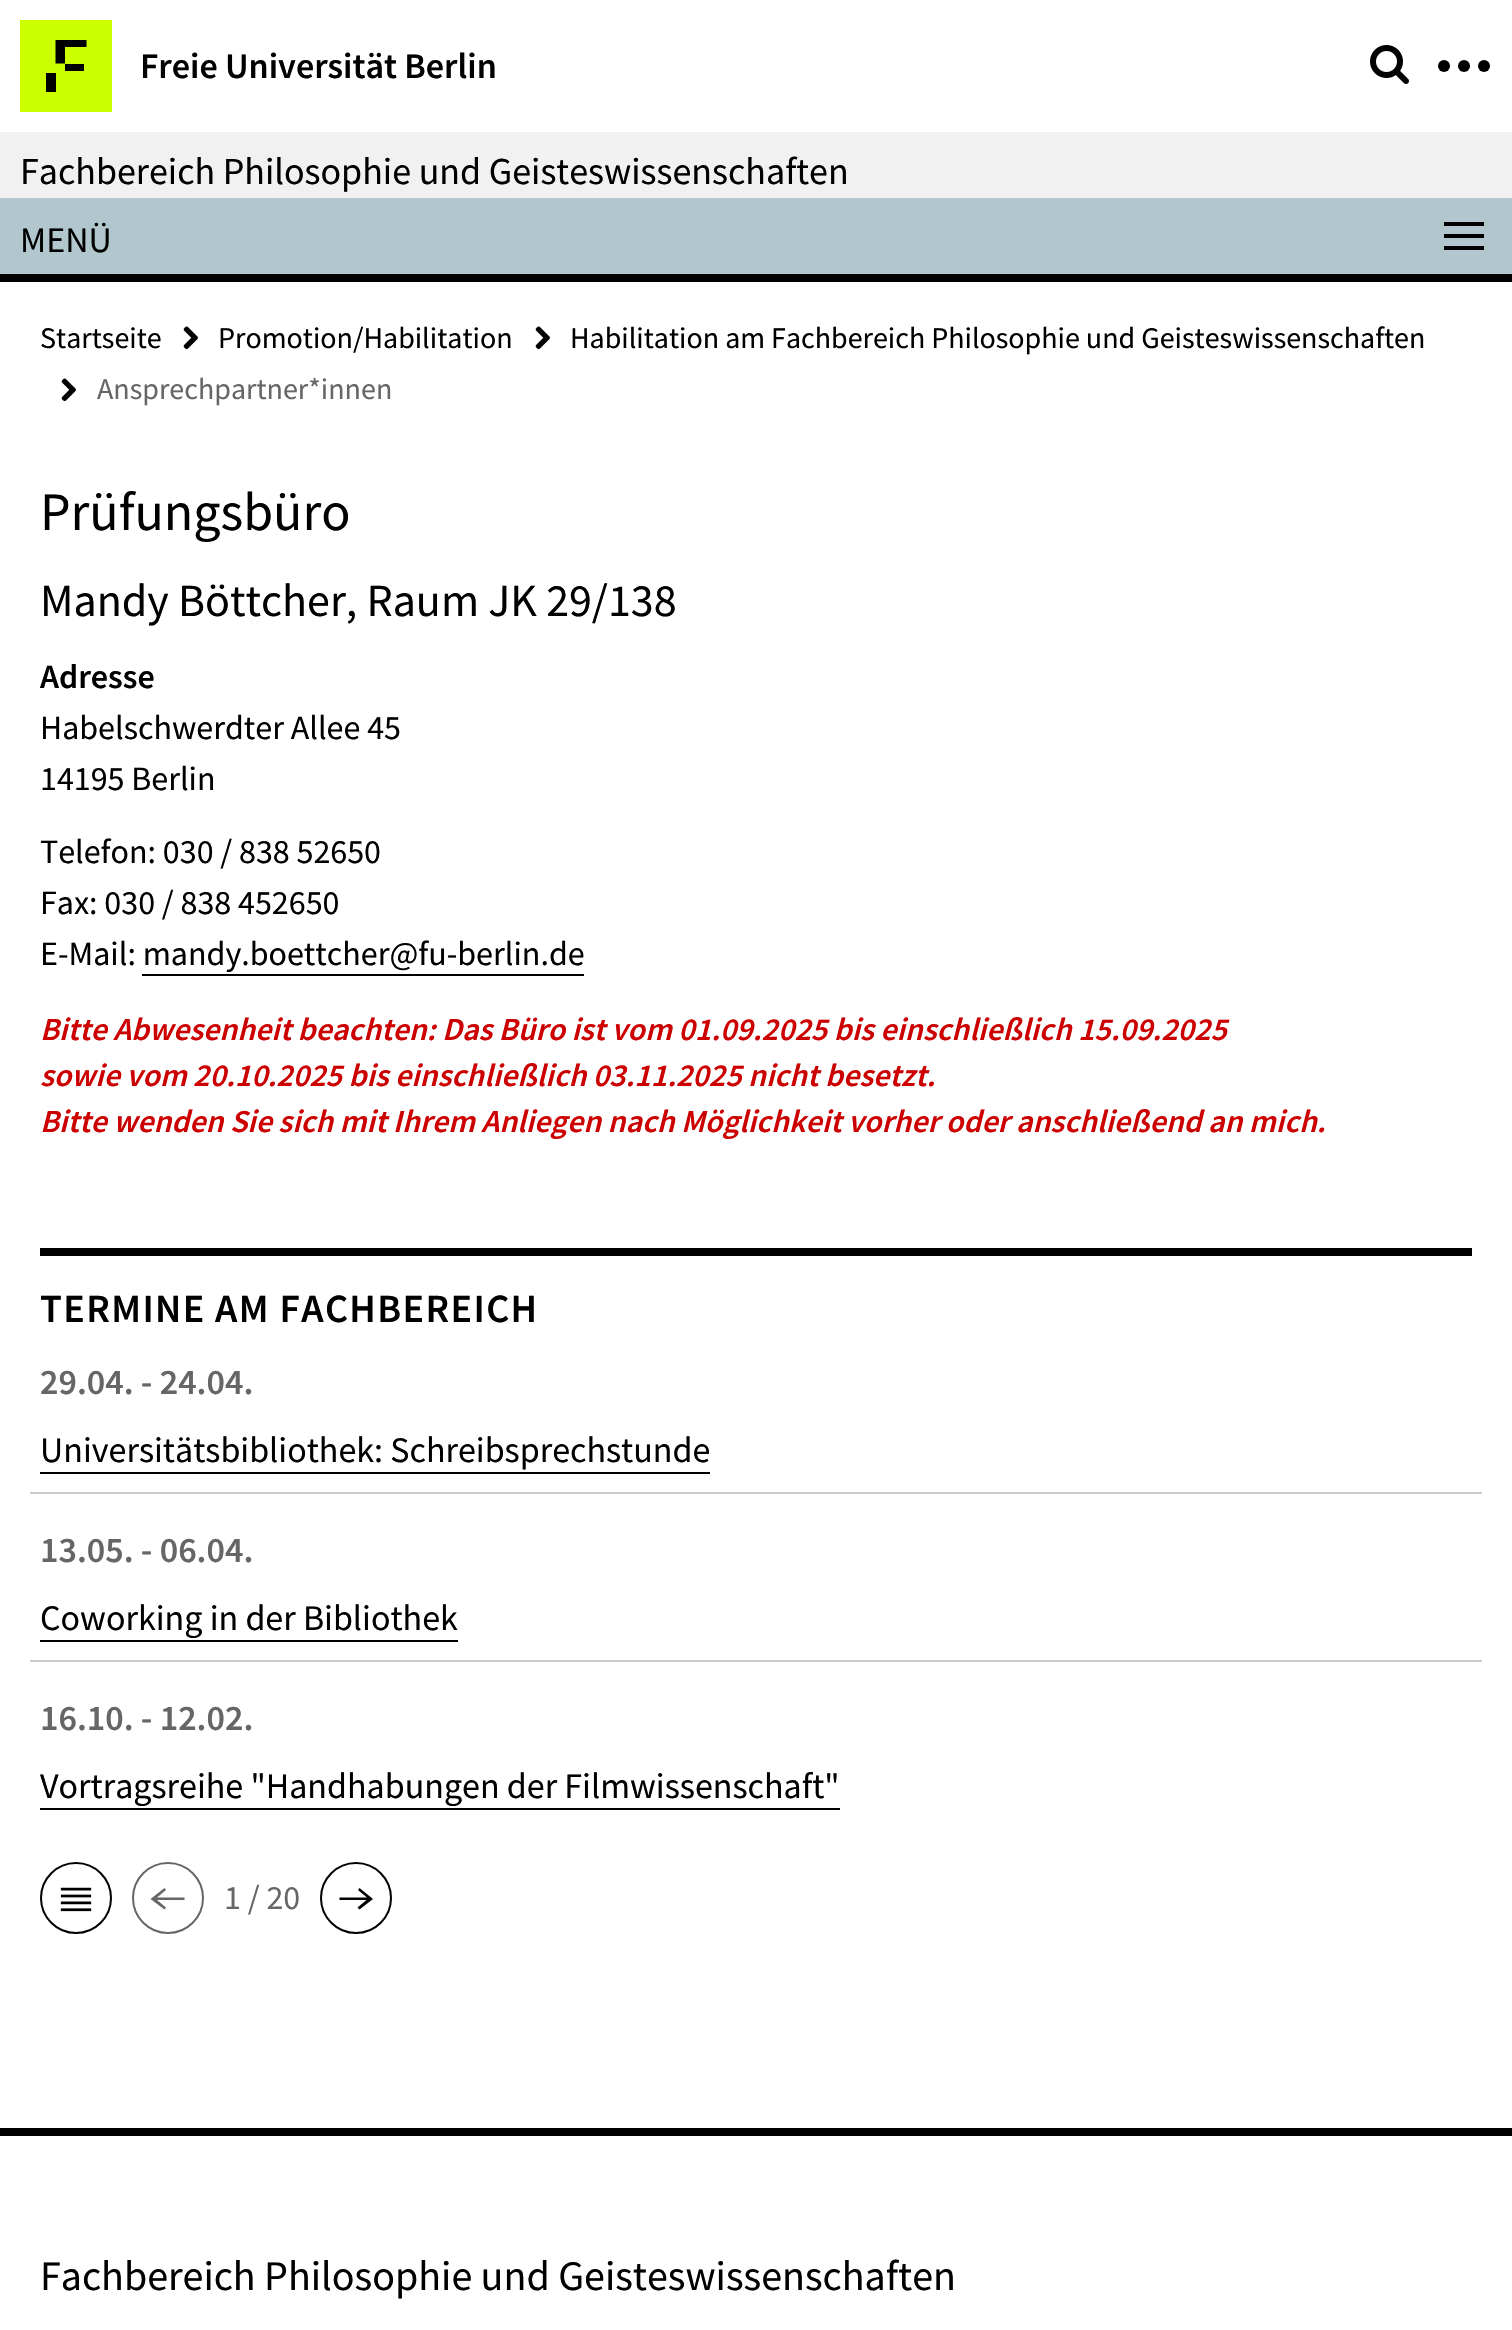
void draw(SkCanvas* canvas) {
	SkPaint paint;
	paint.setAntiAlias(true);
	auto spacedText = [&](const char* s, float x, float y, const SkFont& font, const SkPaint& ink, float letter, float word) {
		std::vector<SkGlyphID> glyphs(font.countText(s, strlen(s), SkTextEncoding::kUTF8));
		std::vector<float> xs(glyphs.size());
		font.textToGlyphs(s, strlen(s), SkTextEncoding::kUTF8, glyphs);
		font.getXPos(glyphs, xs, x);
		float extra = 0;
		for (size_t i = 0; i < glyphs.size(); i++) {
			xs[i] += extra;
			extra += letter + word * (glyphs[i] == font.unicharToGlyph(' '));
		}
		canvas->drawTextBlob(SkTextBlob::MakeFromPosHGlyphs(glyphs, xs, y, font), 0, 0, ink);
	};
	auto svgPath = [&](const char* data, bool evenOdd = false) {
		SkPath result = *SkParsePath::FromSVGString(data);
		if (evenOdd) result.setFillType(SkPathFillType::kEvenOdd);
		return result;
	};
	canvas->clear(0xffffffff);
	paint.setColor(0xffccff00);
	canvas->drawRect(SkRect::MakeXYWH(20, 20, 92, 92), paint);
	paint.setColor(0xff000000);
	canvas->drawPath(svgPath("M55.5 40H86.5V47H65V63.5H55.5Z"), paint);
	canvas->drawRect(SkRect::MakeXYWH(65, 64, 19, 7), paint);
	canvas->drawRect(SkRect::MakeXYWH(46, 73, 10, 19), paint);
	SkFont f1(fontMgr->matchFamilyStyle("Source Sans Pro", SkFontStyle(600, SkFontStyle::kNormal_Width, SkFontStyle::kUpright_Slant)), 36);
	f1.setSubpixel(true);
	canvas->drawString("Freie Universität Berlin", 140, 78, f1, paint);
	canvas->drawImageRect(SkImages::DeferredFromEncodedData(SkData::MakeFromFileName("img1.png")), SkRect::MakeXYWH(1370, 45, 39, 39), SkSamplingOptions());
	canvas->drawCircle(1444, 66, 6, paint);
	canvas->drawCircle(1464, 66, 6, paint);
	canvas->drawCircle(1484, 66, 6, paint);
	paint.setColor(0xfff1f1f1);
	canvas->drawRect(SkRect::MakeXYWH(0, 132, 1512, 66), paint);
	SkFont f2(fontMgr->matchFamilyStyle("Source Sans Pro", SkFontStyle::Normal()), 38);
	f2.setSubpixel(true);
	paint.setColor(0xff000000);
	canvas->drawString("Fachbereich Philosophie und Geisteswissenschaften", 20, 184, f2, paint);
	paint.setColor(0xffb2c7cd);
	canvas->drawRect(SkRect::MakeXYWH(0, 198, 1512, 76), paint);
	paint.setColor(0xff000000);
	canvas->drawRect(SkRect::MakeXYWH(0, 274, 1512, 8), paint);
	SkFont f3(fontMgr->matchFamilyStyle("Source Sans Pro", SkFontStyle::Normal()), 36);
	f3.setSubpixel(true);
	canvas->drawString("MENÜ", 20, 252, f3, paint);
	canvas->drawRect(SkRect::MakeXYWH(1444, 222, 40, 4), paint);
	canvas->drawRect(SkRect::MakeXYWH(1444, 234, 40, 4), paint);
	canvas->drawRect(SkRect::MakeXYWH(1444, 246, 40, 4), paint);
	SkFont f4(fontMgr->matchFamilyStyle("Source Sans Pro", SkFontStyle::Normal()), 30);
	f4.setSubpixel(true);
	canvas->drawString("Startseite", 40, 348, f4, paint);
	canvas->drawImageRect(SkImages::DeferredFromEncodedData(SkData::MakeFromFileName("img2.png")), SkRect::MakeXYWH(183, 326, 15, 24), SkSamplingOptions());
	canvas->drawString("Promotion/Habilitation", 218, 348, f4, paint);
	canvas->drawImageRect(SkImages::DeferredFromEncodedData(SkData::MakeFromFileName("img2.png")), SkRect::MakeXYWH(535, 326, 15, 24), SkSamplingOptions());
	canvas->drawString("Habilitation am Fachbereich Philosophie und Geisteswissenschaften", 570, 348, f4, paint);
	canvas->drawImageRect(SkImages::DeferredFromEncodedData(SkData::MakeFromFileName("img2.png")), SkRect::MakeXYWH(61, 378, 15, 24), SkSamplingOptions());
	paint.setColor(0xff666666);
	canvas->drawString("Ansprechpartner*innen", 97, 399, f4, paint);
	SkFont f5(fontMgr->matchFamilyStyle("Source Sans Pro", SkFontStyle::Normal()), 54);
	f5.setSubpixel(true);
	paint.setColor(0xff000000);
	canvas->drawString("Prüfungsbüro", 40, 530, f5, paint);
	SkFont f6(fontMgr->matchFamilyStyle("Source Sans Pro", SkFontStyle::Normal()), 46);
	f6.setSubpixel(true);
	canvas->drawString("Mandy Böttcher, Raum JK 29/138", 40, 616, f6, paint);
	SkFont f7(fontMgr->matchFamilyStyle("Source Sans Pro", SkFontStyle(600, SkFontStyle::kNormal_Width, SkFontStyle::kUpright_Slant)), 34);
	f7.setSubpixel(true);
	canvas->drawString("Adresse", 40, 688, f7, paint);
	SkFont f8(fontMgr->matchFamilyStyle("Source Sans Pro", SkFontStyle::Normal()), 34);
	f8.setSubpixel(true);
	canvas->drawString("Habelschwerdter Allee 45", 40, 739, f8, paint);
	canvas->drawString("14195 Berlin", 40, 790, f8, paint);
	canvas->drawString("Telefon: 030 / 838 52650", 40, 863, f8, paint);
	canvas->drawString("Fax: 030 / 838 452650", 40, 914, f8, paint);
	canvas->drawString("E-Mail: mandy.boettcher@fu-berlin.de", 40, 965, f8, paint);
	canvas->drawRect(SkRect::MakeXYWH(142, 974, 442, 2), paint);
	SkFont f9(fontMgr->matchFamilyStyle("Source Sans Pro", SkFontStyle(600, SkFontStyle::kNormal_Width, SkFontStyle::kItalic_Slant)), 32);
	f9.setSubpixel(true);
	paint.setColor(0xffcc0000);
	canvas->drawString("Bitte Abwesenheit beachten: Das Büro ist vom 01.09.2025 bis einschließlich 15.09.2025", 40, 1040, f9, paint);
	canvas->drawString("sowie vom 20.10.2025 bis einschließlich 03.11.2025 nicht besetzt.", 40, 1086, f9, paint);
	canvas->drawString("Bitte wenden Sie sich mit Ihrem Anliegen nach Möglichkeit vorher oder anschließend an mich.", 40, 1132, f9, paint);
	paint.setColor(0xff000000);
	canvas->drawRect(SkRect::MakeXYWH(40, 1248, 1432, 8), paint);
	SkFont f10(fontMgr->matchFamilyStyle("Source Sans Pro", SkFontStyle(600, SkFontStyle::kNormal_Width, SkFontStyle::kUpright_Slant)), 40);
	f10.setSubpixel(true);
	spacedText("TERMINE AM FACHBEREICH", 40, 1322, f10, paint, 1.4, 0);
	paint.setColor(0xffcccccc);
	canvas->drawRect(SkRect::MakeXYWH(30, 1492, 1452, 2), paint);
	paint.setColor(0xff666666);
	canvas->drawString("29.04. - 24.04.", 40, 1394, f1, paint);
	paint.setColor(0xff000000);
	canvas->drawString("Universitätsbibliothek: Schreibsprechstunde", 40, 1462, f3, paint);
	canvas->drawRect(SkRect::MakeXYWH(40, 1472, 670, 2), paint);
	paint.setColor(0xffcccccc);
	canvas->drawRect(SkRect::MakeXYWH(30, 1660, 1452, 2), paint);
	paint.setColor(0xff666666);
	canvas->drawString("13.05. - 06.04.", 40, 1562, f1, paint);
	paint.setColor(0xff000000);
	canvas->drawString("Coworking in der Bibliothek", 40, 1630, f3, paint);
	canvas->drawRect(SkRect::MakeXYWH(40, 1640, 418, 2), paint);
	paint.setColor(0xff666666);
	canvas->drawString("16.10. - 12.02.", 40, 1730, f1, paint);
	paint.setColor(0xff000000);
	canvas->drawString("Vortragsreihe \"Handhabungen der Filmwissenschaft\"", 40, 1798, f3, paint);
	canvas->drawRect(SkRect::MakeXYWH(40, 1808, 800, 2), paint);
	paint.setStroke(true);
	paint.setStrokeWidth(2);
	canvas->drawCircle(76, 1898, 35, paint);
	canvas->drawImageRect(SkImages::DeferredFromEncodedData(SkData::MakeFromFileName("img3.png")), SkRect::MakeXYWH(60, 1887, 32, 25), SkSamplingOptions());
	paint.setColor(0xff666666);
	canvas->drawCircle(168, 1898, 35, paint);
	paint.setStroke(false);
	canvas->drawPath(svgPath("M184.5 1897.5H157L166 1890L164.5 1888L150.5 1899L164.5 1909.5L166 1907.5L157 1900H184.5Z"), paint);
	canvas->drawString("1 / 20", 224, 1909, f8, paint);
	paint.setStroke(true);
	paint.setColor(0xff000000);
	canvas->drawCircle(356, 1898, 35, paint);
	paint.setStroke(false);
	canvas->drawPath(svgPath("M359.5 1888L358 1890L367 1897.5H339.5V1900H366.5L357.5 1907.5L359.5 1909.5L373 1899Z"), paint);
	canvas->drawRect(SkRect::MakeXYWH(0, 2128, 1512, 8), paint);
	SkFont f11(fontMgr->matchFamilyStyle("Source Sans Pro", SkFontStyle::Normal()), 42);
	f11.setSubpixel(true);
	canvas->drawString("Fachbereich Philosophie und Geisteswissenschaften", 40, 2290, f11, paint);
}
